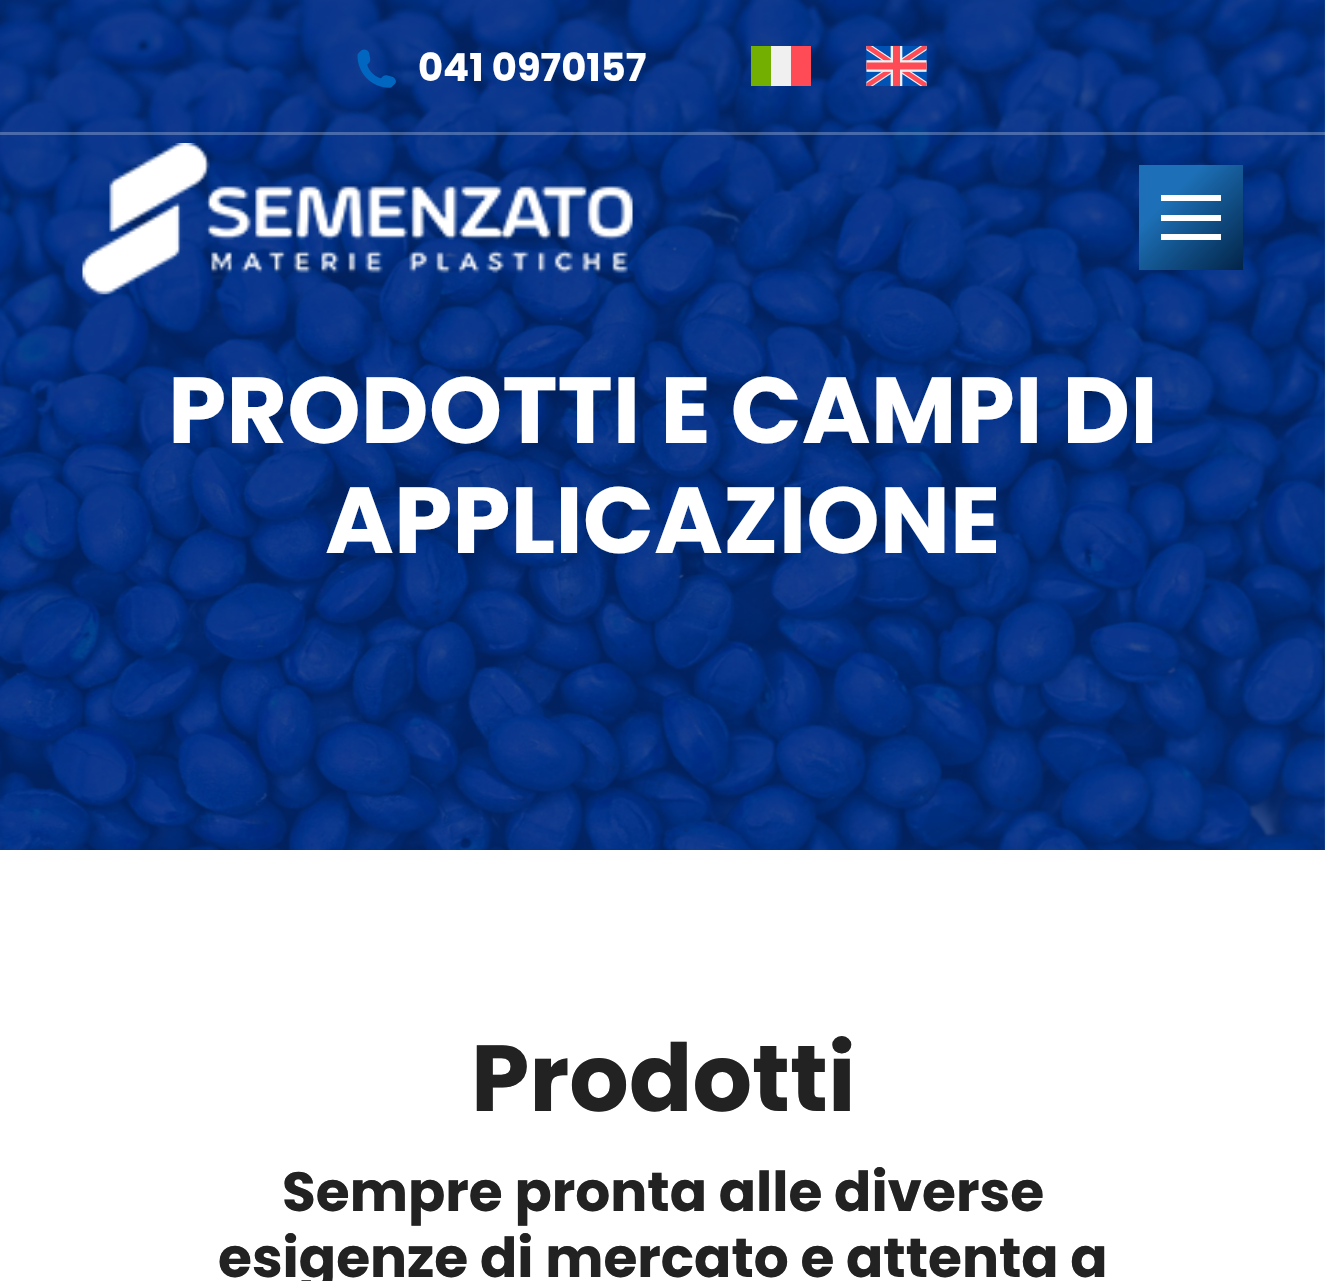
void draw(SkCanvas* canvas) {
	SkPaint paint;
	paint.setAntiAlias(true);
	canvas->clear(0xffffffff);
	canvas->drawImageRect(SkImages::DeferredFromEncodedData(SkData::MakeFromFileName("img4.png")), SkRect::MakeXYWH(0, 0, 1325, 850), SkSamplingOptions());
	canvas->drawImageRect(SkImages::DeferredFromEncodedData(SkData::MakeFromFileName("img1.png")), SkRect::MakeXYWH(357, 49, 39, 39), SkSamplingOptions());
	SkFont f1(fontMgr->matchFamilyStyle("Poppins", SkFontStyle::Bold()), 38.5);
	f1.setSubpixel(true);
	paint.setColor(0xffffffff);
	canvas->drawString("041 0970157", 418, 81, f1, paint);
	paint.setColor(0xff73af00);
	canvas->drawRect(SkRect::MakeXYWH(751, 46, 20, 40), paint);
	paint.setColor(0xfff0f0f0);
	canvas->drawRect(SkRect::MakeXYWH(771, 46, 20, 40), paint);
	paint.setColor(0xffff4b55);
	canvas->drawRect(SkRect::MakeXYWH(791, 46, 20, 40), paint);
	canvas->drawImageRect(SkImages::DeferredFromEncodedData(SkData::MakeFromFileName("img2.png")), SkRect::MakeXYWH(866, 45, 61, 42), SkSamplingOptions());
	paint.setColor(0x40ffffff);
	canvas->drawRect(SkRect::MakeXYWH(0, 132, 1325, 3), paint);
	canvas->drawImageRect(SkImages::DeferredFromEncodedData(SkData::MakeFromFileName("img3.png")), SkRect::MakeXYWH(82, 143, 551, 152), SkSamplingOptions());
	{
		const SkColor colors[] = {0xff1d70b7, 0xff022448};
		const float stops[] = {0.3, 1};
		const SkPoint ends[] = {{1139, 165}, {1243, 270}};
		paint.setShader(SkGradientShader::MakeLinear(ends, colors, stops, 2, SkTileMode::kClamp));
		paint.setAlpha(255);
	}
	canvas->drawRect(SkRect::MakeXYWH(1139, 165, 104, 105), paint);
	paint.setShader(nullptr);
	paint.setColor(0xffffffff);
	canvas->drawRect(SkRect::MakeXYWH(1161, 195, 60, 6), paint);
	canvas->drawRect(SkRect::MakeXYWH(1161, 215, 60, 6), paint);
	canvas->drawRect(SkRect::MakeXYWH(1161, 234, 60, 6), paint);
	SkFont f2(fontMgr->matchFamilyStyle("Poppins", SkFontStyle::Bold()), 93.5);
	f2.setSubpixel(true);
	canvas->drawString("PRODOTTI E CAMPI DI", 168, 443, f2, paint);
	canvas->drawString("APPLICAZIONE", 325, 553, f2, paint);
	paint.setColor(0xff222222);
	canvas->drawString("Prodotti", 471, 1111, f2, paint);
	SkFont f3(fontMgr->matchFamilyStyle("Poppins", SkFontStyle::Bold()), 55);
	f3.setSubpixel(true);
	canvas->drawString("Sempre pronta alle diverse", 282, 1211, f3, paint);
	canvas->drawString("esigenze di mercato e attenta a", 218, 1277, f3, paint);
}
